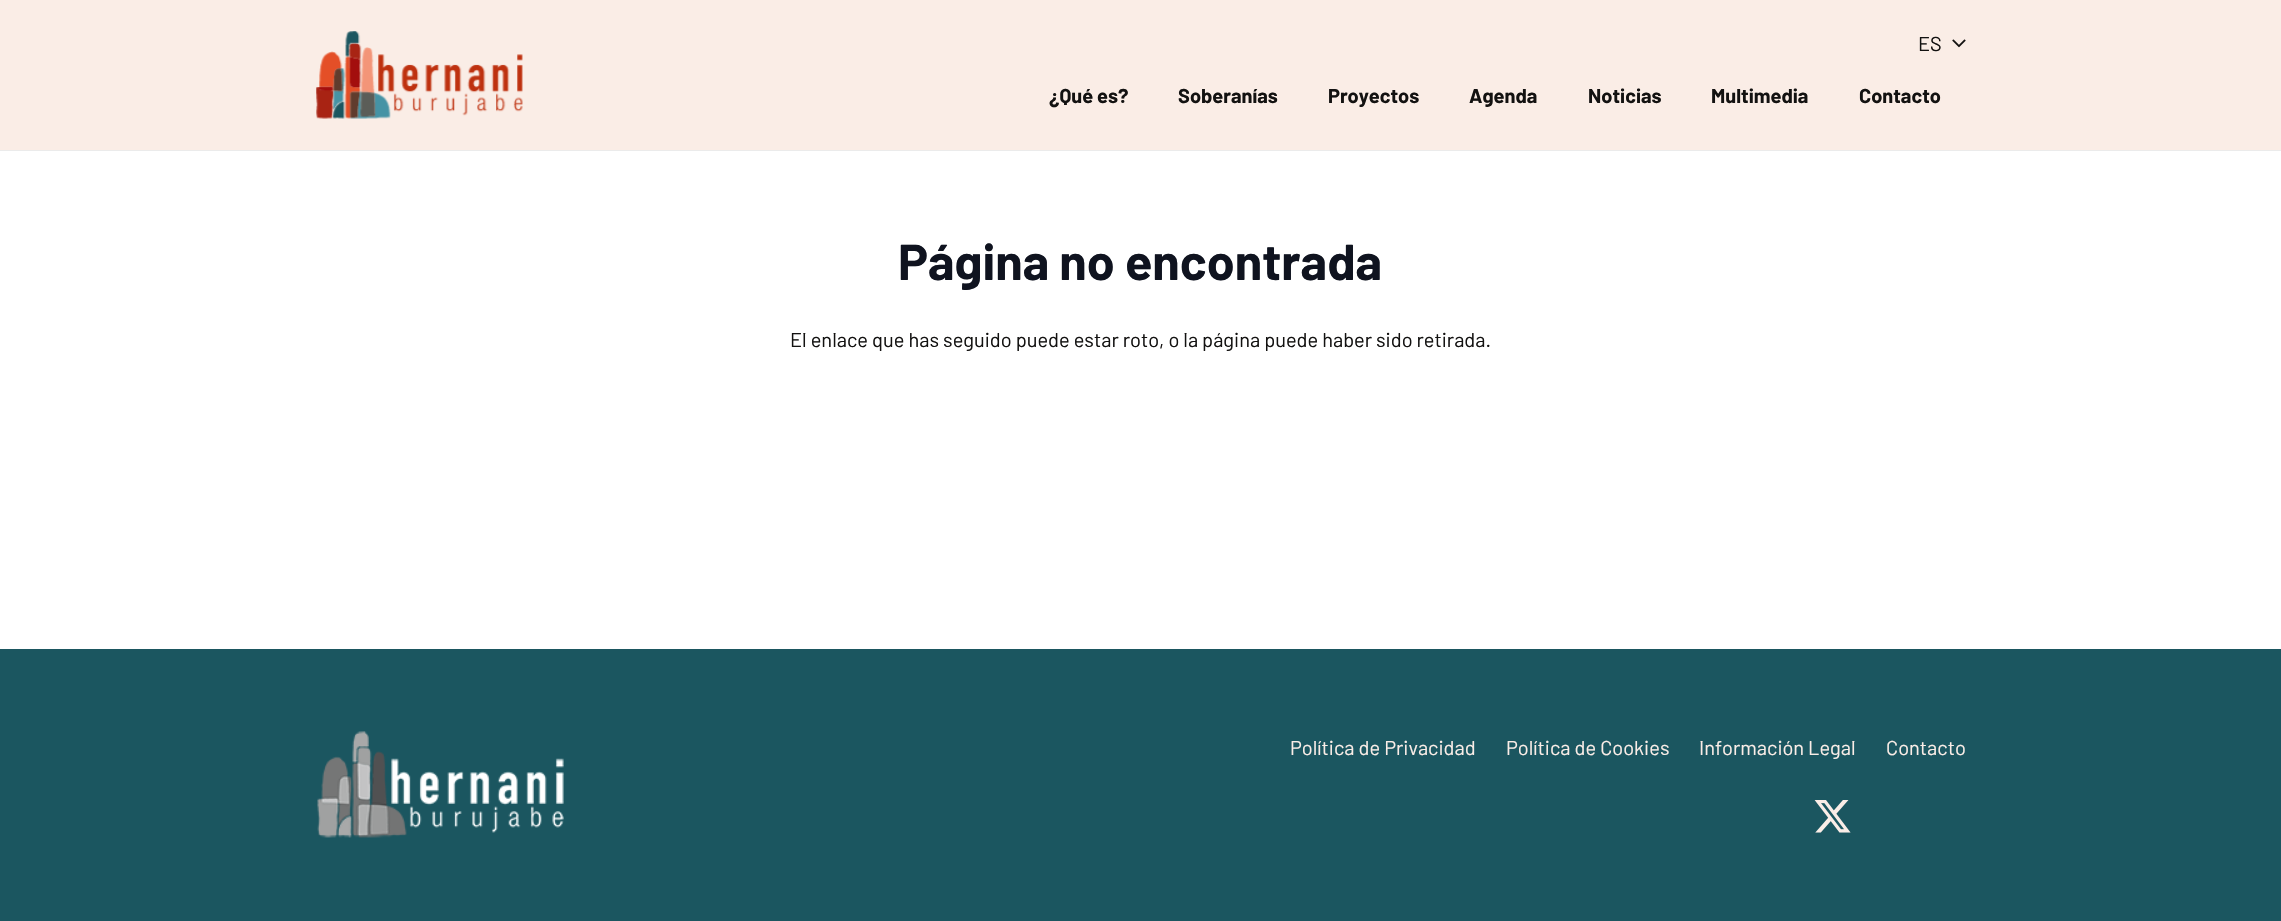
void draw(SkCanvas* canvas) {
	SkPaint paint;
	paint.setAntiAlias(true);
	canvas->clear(0xffffffff);
	paint.setColor(0xffebebeb);
	canvas->drawRect(SkRect::MakeXYWH(0, 150, 2281, 1), paint);
	paint.setColor(0xfffaede6);
	canvas->drawRect(SkRect::MakeXYWH(0, 0, 2281, 150), paint);
	canvas->drawImageRect(SkImages::DeferredFromEncodedData(SkData::MakeFromFileName("img1.png")), SkRect::MakeXYWH(316, 31, 207, 88), SkSamplingOptions());
	SkFont f1(fontMgr->matchFamilyStyle("Barlow", SkFontStyle::Normal()), 20);
	f1.setSubpixel(true);
	paint.setColor(0xff131211);
	canvas->drawString("ES", 1918, 51, f1, paint);
	canvas->drawImageRect(SkImages::DeferredFromEncodedData(SkData::MakeFromFileName("img2.png")), SkRect::MakeXYWH(1952, 39, 14, 9), SkSamplingOptions());
	SkFont f2(fontMgr->matchFamilyStyle("Barlow", SkFontStyle::Bold()), 20);
	f2.setSubpixel(true);
	canvas->drawString("¿Qué es?", 1049, 103, f2, paint);
	canvas->drawString("Soberanías", 1178, 103, f2, paint);
	canvas->drawString("Proyectos", 1328, 103, f2, paint);
	canvas->drawString("Agenda", 1469, 103, f2, paint);
	canvas->drawString("Noticias", 1588, 103, f2, paint);
	canvas->drawString("Multimedia", 1711, 103, f2, paint);
	canvas->drawString("Contacto", 1859, 103, f2, paint);
	SkFont f3(fontMgr->matchFamilyStyle("Barlow", SkFontStyle::Bold()), 50.25);
	f3.setSubpixel(true);
	paint.setColor(0xff0f131f);
	canvas->drawString("Página no encontrada", 898, 280, f3, paint);
	paint.setColor(0xff131211);
	canvas->drawString("El enlace que has seguido puede estar roto, o la página puede haber sido retirada.", 790, 347, f1, paint);
	paint.setColor(0xff1b5660);
	canvas->drawRect(SkRect::MakeXYWH(0, 649, 2281, 272), paint);
	canvas->drawImageRect(SkImages::DeferredFromEncodedData(SkData::MakeFromFileName("img3.png")), SkRect::MakeXYWH(317, 731, 247, 107), SkSamplingOptions());
	paint.setColor(0xfffaede7);
	canvas->drawString("Política de Privacidad", 1290, 755, f1, paint);
	canvas->drawString("Política de Cookies", 1506, 755, f1, paint);
	canvas->drawString("Información Legal", 1699, 755, f1, paint);
	canvas->drawString("Contacto", 1886, 755, f1, paint);
	canvas->drawImageRect(SkImages::DeferredFromEncodedData(SkData::MakeFromFileName("img4.png")), SkRect::MakeXYWH(1814, 800, 37, 33), SkSamplingOptions());
}
